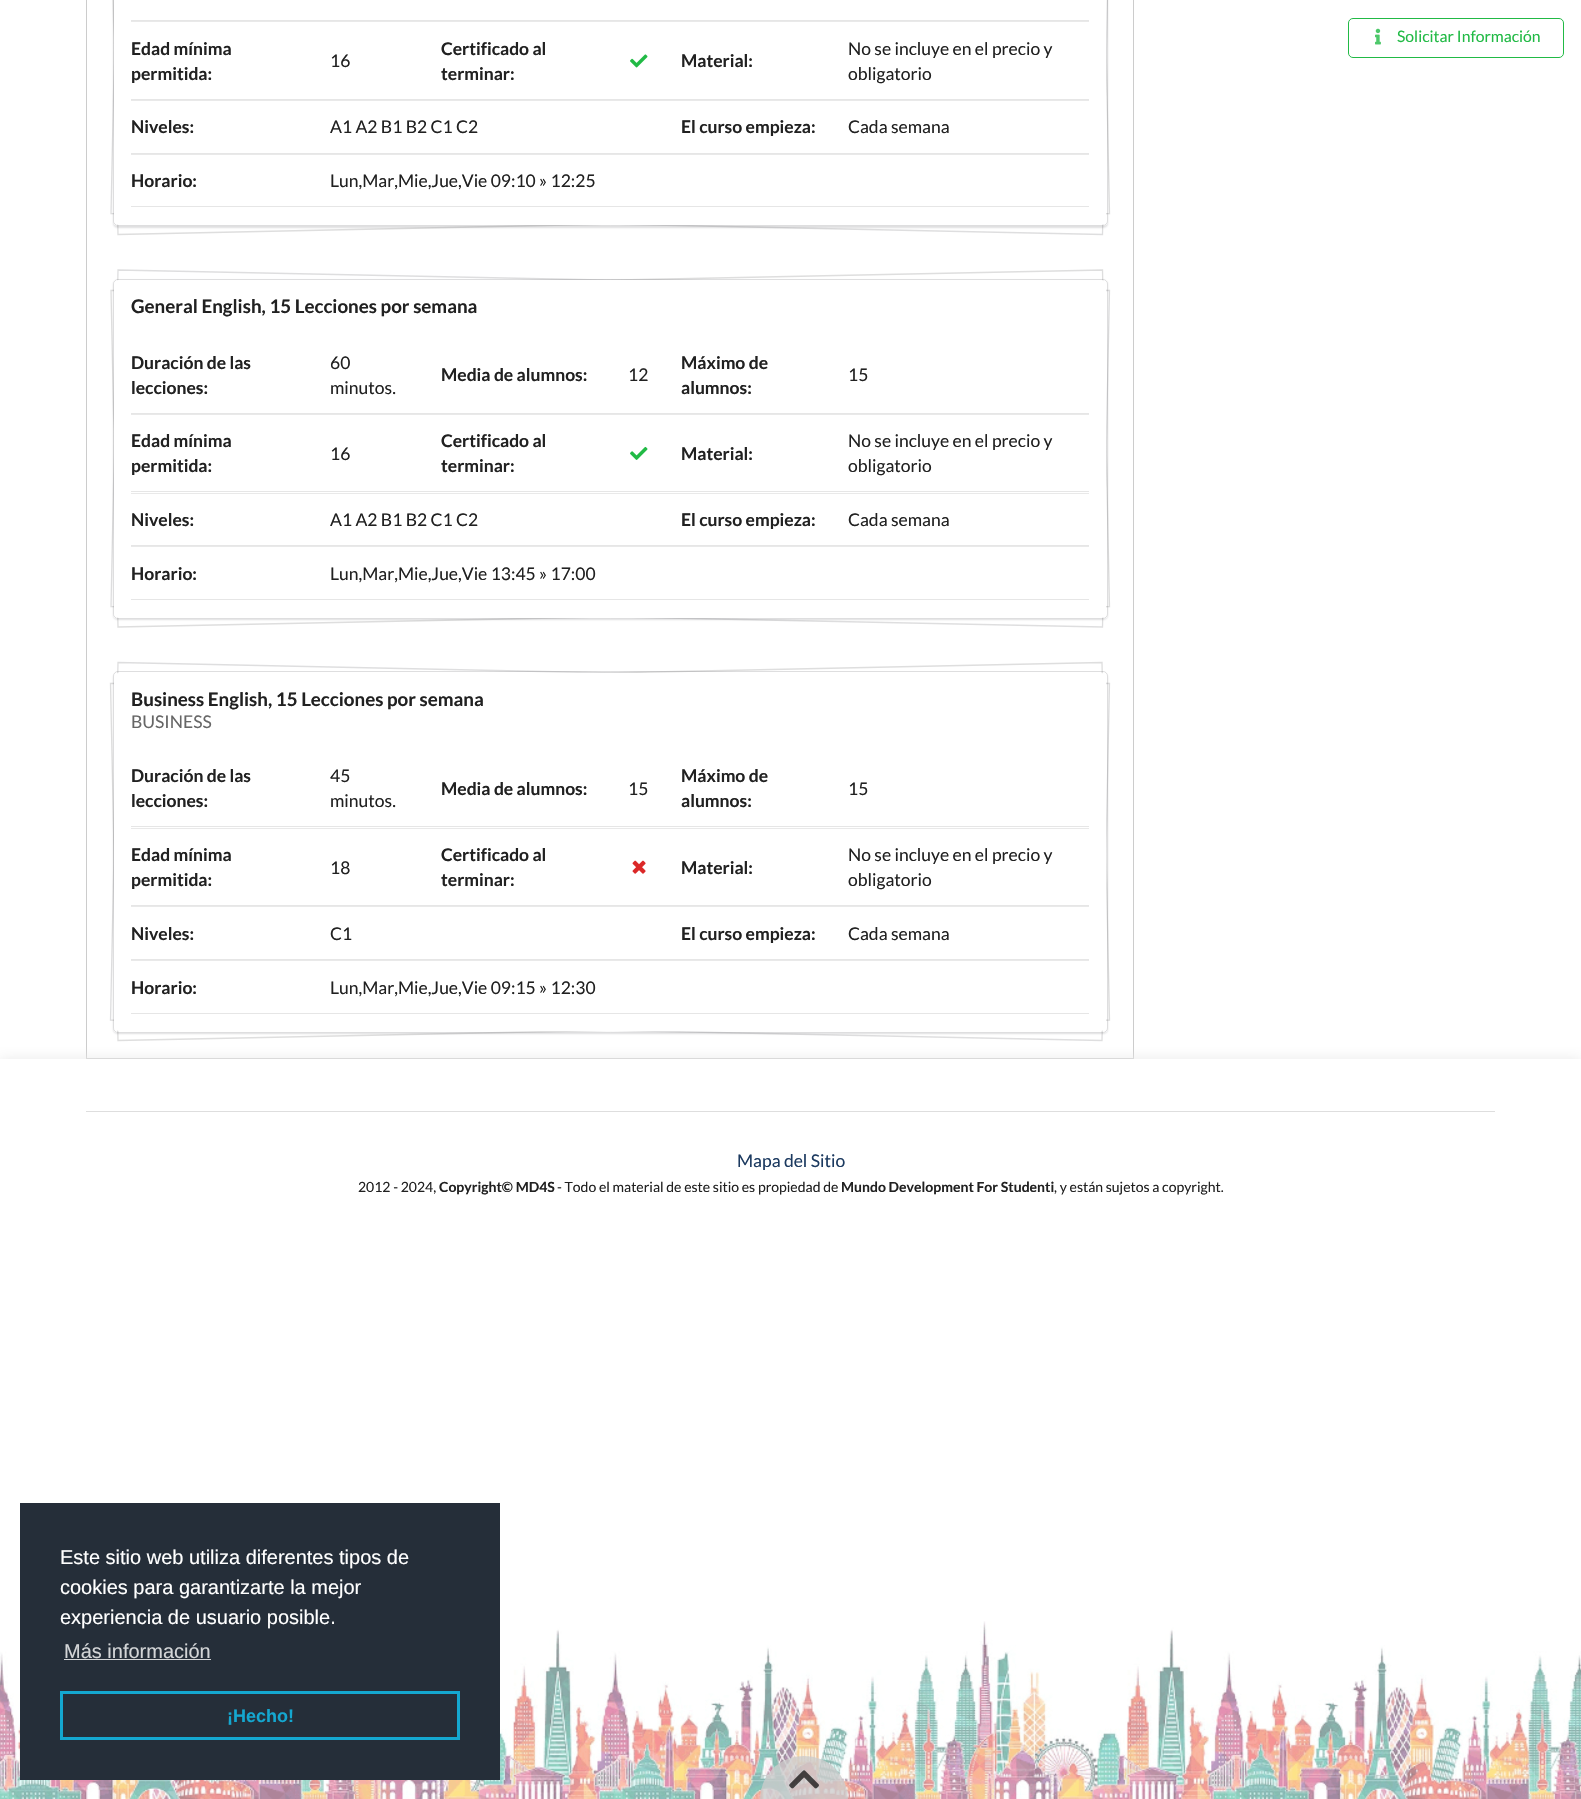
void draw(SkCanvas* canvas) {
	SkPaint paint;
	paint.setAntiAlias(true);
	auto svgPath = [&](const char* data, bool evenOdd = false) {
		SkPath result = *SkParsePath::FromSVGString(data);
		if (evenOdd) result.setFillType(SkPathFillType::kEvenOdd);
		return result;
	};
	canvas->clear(0xffffffff);
	paint.setStroke(true);
	paint.setStrokeWidth(1);
	paint.setColor(0xff21ba45);
	canvas->drawRoundRect(SkRect::MakeXYWH(1348.5, 18.5, 215, 39), 4.5, 4.5, paint);
	canvas->drawImageRect(SkImages::DeferredFromEncodedData(SkData::MakeFromFileName("img1.png")), SkRect::MakeXYWH(1375, 28, 6, 17), SkSamplingOptions());
	SkFont f1(fontMgr->matchFamilyStyle("Lato", SkFontStyle::Normal()), 15.75);
	f1.setSubpixel(true);
	paint.setStroke(false);
	canvas->drawString("Solicitar Información", 1397, 42, f1, paint);
	paint.setStroke(true);
	paint.setStrokeWidth(1.3);
	paint.setColor(0xffdedede);
	canvas->drawPath(svgPath("M111-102L1102.5-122.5L1109.5 213.5L118 234.5Z"), paint);
	paint.setStroke(false);
	paint.setColor(0xffffffff);
	canvas->drawPath(svgPath("M117-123L1110-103L1103 235L110 214Z"), paint);
	paint.setStroke(true);
	paint.setColor(0x26222426);
	canvas->drawPath(svgPath("M118-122.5L1109.5-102L1102.5 234.5L111 213.5Z"), paint);
	paint.setColor(0xffdedede);
	canvas->drawPath(svgPath("M111 290.5L1102.5 270L1109.5 606.5L118 627Z"), paint);
	paint.setStroke(false);
	paint.setColor(0xffffffff);
	canvas->drawPath(svgPath("M117 269L1110 290L1103 628L110 607Z"), paint);
	paint.setStroke(true);
	paint.setColor(0x26222426);
	canvas->drawPath(svgPath("M118 270L1109.5 290.5L1102.5 627L111 606.5Z"), paint);
	paint.setColor(0xffdedede);
	canvas->drawPath(svgPath("M110.5 683.5L1102 662.5L1109.5 1020L118 1040.5Z"), paint);
	paint.setStroke(false);
	paint.setColor(0xffffffff);
	canvas->drawPath(svgPath("M118 662L1110 683L1103 1041L110 1021Z"), paint);
	paint.setStroke(true);
	paint.setColor(0x26222426);
	canvas->drawPath(svgPath("M118 662.5L1109.5 683.5L1102 1040.5L110.5 1020Z"), paint);
	paint.setStrokeWidth(1);
	paint.setColor(0xffcccccc);
	canvas->drawRect(SkRect::MakeXYWH(86.5, -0.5, 1047, 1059), paint);
	canvas->save();
	canvas->clipPath(svgPath("M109 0H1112V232H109ZM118-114H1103C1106-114 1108-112 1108-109V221C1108 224 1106 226 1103 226H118C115 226 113 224 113 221V-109C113-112 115-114 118-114Z", true), true);
	paint.setStroke(false);
	paint.setColor(0x26222426);
	paint.setMaskFilter(SkMaskFilter::MakeBlur(kNormal_SkBlurStyle, 1));
	canvas->drawRoundRect(SkRect::MakeXYWH(113, -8, 995, 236), 5, 5, paint);
	paint.setMaskFilter(nullptr);
	canvas->restore();
	paint.setStroke(true);
	canvas->drawRoundRect(SkRect::MakeXYWH(113.5, -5.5, 994, 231), 4.5, 4.5, paint);
	paint.setStroke(false);
	paint.setColor(0xffffffff);
	canvas->drawRoundRect(SkRect::MakeXYWH(114, -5, 992, 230), 5, 5, paint);
	paint.setColor(0xffe6e6e6);
	canvas->drawRect(SkRect::MakeXYWH(131, 20, 958, 1), paint);
	canvas->drawRect(SkRect::MakeXYWH(131, 99, 958, 1), paint);
	paint.setColor(0xffe9e9e9);
	canvas->drawRect(SkRect::MakeXYWH(131, 21, 958, 1), paint);
	SkFont f2(fontMgr->matchFamilyStyle("Lato", SkFontStyle::Bold()), 17.5);
	f2.setSubpixel(true);
	paint.setColor(0xff212121);
	canvas->drawString("Edad mínima", 131, 55, f2, paint);
	canvas->drawString("permitida:", 131, 80, f2, paint);
	SkFont f3(fontMgr->matchFamilyStyle("Lato", SkFontStyle::Normal()), 17.5);
	f3.setSubpixel(true);
	canvas->drawString("16", 330, 67, f3, paint);
	canvas->drawString("Certificado al", 441, 55, f2, paint);
	canvas->drawString("terminar:", 441, 80, f2, paint);
	canvas->drawImageRect(SkImages::DeferredFromEncodedData(SkData::MakeFromFileName("img2.png")), SkRect::MakeXYWH(630, 54, 18, 14), SkSamplingOptions());
	canvas->drawString("Material:", 681, 67, f2, paint);
	canvas->drawString("No se incluye en el precio y", 848, 55, f3, paint);
	canvas->drawString("obligatorio", 848, 80, f3, paint);
	paint.setColor(0xffe6e6e6);
	canvas->drawRect(SkRect::MakeXYWH(131, 153, 958, 1), paint);
	paint.setColor(0xffe9e9e9);
	canvas->drawRect(SkRect::MakeXYWH(131, 100, 958, 1), paint);
	paint.setColor(0xff212121);
	canvas->drawString("Niveles:", 131, 133, f2, paint);
	canvas->drawString("A1 A2 B1 B2 C1 C2", 330, 133, f3, paint);
	canvas->drawString("El curso empieza:", 681, 133, f2, paint);
	canvas->drawString("Cada semana", 848, 133, f3, paint);
	paint.setColor(0xffe6e6e6);
	canvas->drawRect(SkRect::MakeXYWH(131, 206, 958, 1), paint);
	paint.setColor(0xffe9e9e9);
	canvas->drawRect(SkRect::MakeXYWH(131, 154, 958, 1), paint);
	paint.setColor(0xff212121);
	canvas->drawString("Horario:", 131, 187, f2, paint);
	canvas->drawString("Lun,Mar,Mie,Jue,Vie 09:10 » 12:25", 330, 187, f3, paint);
	canvas->save();
	canvas->clipPath(svgPath("M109 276H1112V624H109ZM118 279H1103C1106 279 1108 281 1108 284V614C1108 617 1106 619 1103 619H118C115 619 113 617 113 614V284C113 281 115 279 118 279Z", true), true);
	paint.setColor(0x26222426);
	paint.setMaskFilter(SkMaskFilter::MakeBlur(kNormal_SkBlurStyle, 1));
	canvas->drawRoundRect(SkRect::MakeXYWH(113, 280, 995, 340), 5, 5, paint);
	paint.setMaskFilter(nullptr);
	canvas->restore();
	paint.setStroke(true);
	canvas->drawRoundRect(SkRect::MakeXYWH(113.5, 279.5, 994, 339), 4.5, 4.5, paint);
	paint.setStroke(false);
	paint.setColor(0xffffffff);
	canvas->drawRoundRect(SkRect::MakeXYWH(114, 280, 992, 338), 5, 5, paint);
	SkFont f4(fontMgr->matchFamilyStyle("Lato", SkFontStyle::Bold()), 18.75);
	f4.setSubpixel(true);
	paint.setColor(0xff212121);
	canvas->drawString("General English, 15 Lecciones por semana", 131, 313, f4, paint);
	paint.setColor(0xffe6e6e6);
	canvas->drawRect(SkRect::MakeXYWH(131, 413, 958, 1), paint);
	paint.setColor(0xff212121);
	canvas->drawString("Duración de las", 131, 369, f2, paint);
	canvas->drawString("lecciones:", 131, 394, f2, paint);
	canvas->drawString("60", 330, 369, f3, paint);
	canvas->drawString("minutos.", 330, 394, f3, paint);
	canvas->drawString("Media de alumnos:", 441, 381, f2, paint);
	canvas->drawString("12", 628, 381, f3, paint);
	canvas->drawString("Máximo de", 681, 369, f2, paint);
	canvas->drawString("alumnos:", 681, 394, f2, paint);
	canvas->drawString("15", 848, 381, f3, paint);
	paint.setColor(0xffe6e6e6);
	canvas->drawRect(SkRect::MakeXYWH(131, 491, 958, 1), paint);
	paint.setColor(0xffe9e9e9);
	canvas->drawRect(SkRect::MakeXYWH(131, 414, 958, 1), paint);
	paint.setColor(0xff212121);
	canvas->drawString("Edad mínima", 131, 447, f2, paint);
	canvas->drawString("permitida:", 131, 472, f2, paint);
	canvas->drawString("16", 330, 460, f3, paint);
	canvas->drawString("Certificado al", 441, 447, f2, paint);
	canvas->drawString("terminar:", 441, 472, f2, paint);
	canvas->drawImageRect(SkImages::DeferredFromEncodedData(SkData::MakeFromFileName("img3.png")), SkRect::MakeXYWH(630, 446, 18, 14), SkSamplingOptions());
	canvas->drawString("Material:", 681, 460, f2, paint);
	canvas->drawString("No se incluye en el precio y", 848, 447, f3, paint);
	canvas->drawString("obligatorio", 848, 472, f3, paint);
	paint.setColor(0xffe6e6e6);
	canvas->drawRect(SkRect::MakeXYWH(131, 545, 958, 1), paint);
	paint.setColor(0xffe9e9e9);
	canvas->drawRect(SkRect::MakeXYWH(131, 493, 958, 1), paint);
	paint.setColor(0xff212121);
	canvas->drawString("Niveles:", 131, 526, f2, paint);
	canvas->drawString("A1 A2 B1 B2 C1 C2", 330, 526, f3, paint);
	canvas->drawString("El curso empieza:", 681, 526, f2, paint);
	canvas->drawString("Cada semana", 848, 526, f3, paint);
	paint.setColor(0xffe6e6e6);
	canvas->drawRect(SkRect::MakeXYWH(131, 599, 958, 1), paint);
	paint.setColor(0xffe9e9e9);
	canvas->drawRect(SkRect::MakeXYWH(131, 546, 958, 1), paint);
	paint.setColor(0xff212121);
	canvas->drawString("Horario:", 131, 580, f2, paint);
	canvas->drawString("Lun,Mar,Mie,Jue,Vie 13:45 » 17:00", 330, 580, f3, paint);
	canvas->save();
	canvas->clipPath(svgPath("M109 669H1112V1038H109ZM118 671H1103C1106 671 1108 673 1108 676V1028C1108 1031 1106 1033 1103 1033H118C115 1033 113 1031 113 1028V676C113 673 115 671 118 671Z", true), true);
	paint.setColor(0x26222426);
	paint.setMaskFilter(SkMaskFilter::MakeBlur(kNormal_SkBlurStyle, 1));
	canvas->drawRoundRect(SkRect::MakeXYWH(113, 673, 995, 361), 5, 5, paint);
	paint.setMaskFilter(nullptr);
	canvas->restore();
	paint.setStroke(true);
	canvas->drawRoundRect(SkRect::MakeXYWH(113.5, 671.5, 994, 361), 4.5, 4.5, paint);
	paint.setStroke(false);
	paint.setColor(0xffffffff);
	canvas->drawRoundRect(SkRect::MakeXYWH(114, 673, 992, 358), 5, 5, paint);
	paint.setColor(0xff212121);
	canvas->drawString("Business English, 15 Lecciones por semana", 131, 706, f4, paint);
	paint.setColor(0xff666666);
	canvas->drawString("BUSINESS", 131, 728, f3, paint);
	paint.setColor(0xffe6e6e6);
	canvas->drawRect(SkRect::MakeXYWH(131, 826, 958, 1), paint);
	paint.setColor(0xff212121);
	canvas->drawString("Duración de las", 131, 782, f2, paint);
	canvas->drawString("lecciones:", 131, 807, f2, paint);
	canvas->drawString("45", 330, 782, f3, paint);
	canvas->drawString("minutos.", 330, 807, f3, paint);
	canvas->drawString("Media de alumnos:", 441, 795, f2, paint);
	canvas->drawString("15", 628, 795, f3, paint);
	canvas->drawString("Máximo de", 681, 782, f2, paint);
	canvas->drawString("alumnos:", 681, 807, f2, paint);
	canvas->drawString("15", 848, 795, f3, paint);
	paint.setColor(0xffe6e6e6);
	canvas->drawRect(SkRect::MakeXYWH(131, 905, 958, 1), paint);
	paint.setColor(0xffe9e9e9);
	canvas->drawRect(SkRect::MakeXYWH(131, 828, 958, 1), paint);
	paint.setColor(0xff212121);
	canvas->drawString("Edad mínima", 131, 861, f2, paint);
	canvas->drawString("permitida:", 131, 886, f2, paint);
	canvas->drawString("18", 330, 874, f3, paint);
	canvas->drawString("Certificado al", 441, 861, f2, paint);
	canvas->drawString("terminar:", 441, 886, f2, paint);
	canvas->drawImageRect(SkImages::DeferredFromEncodedData(SkData::MakeFromFileName("img4.png")), SkRect::MakeXYWH(632, 860, 14, 14), SkSamplingOptions());
	canvas->drawString("Material:", 681, 874, f2, paint);
	canvas->drawString("No se incluye en el precio y", 848, 861, f3, paint);
	canvas->drawString("obligatorio", 848, 886, f3, paint);
	paint.setColor(0xffe6e6e6);
	canvas->drawRect(SkRect::MakeXYWH(131, 959, 958, 1), paint);
	paint.setColor(0xffe9e9e9);
	canvas->drawRect(SkRect::MakeXYWH(131, 906, 958, 1), paint);
	paint.setColor(0xff212121);
	canvas->drawString("Niveles:", 131, 940, f2, paint);
	canvas->drawString("C1", 330, 940, f3, paint);
	canvas->drawString("El curso empieza:", 681, 940, f2, paint);
	canvas->drawString("Cada semana", 848, 940, f3, paint);
	paint.setColor(0xffe6e6e6);
	canvas->drawRect(SkRect::MakeXYWH(131, 1013, 958, 1), paint);
	paint.setColor(0xffe9e9e9);
	canvas->drawRect(SkRect::MakeXYWH(131, 960, 958, 1), paint);
	paint.setColor(0xff212121);
	canvas->drawString("Horario:", 131, 994, f2, paint);
	canvas->drawString("Lun,Mar,Mie,Jue,Vie 09:15 » 12:30", 330, 994, f3, paint);
	canvas->save();
	canvas->clipRect(SkRect::MakeXYWH(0, 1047, 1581, 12));
	paint.setColor(0xffeaeaea);
	paint.setMaskFilter(SkMaskFilter::MakeBlur(kNormal_SkBlurStyle, 6));
	canvas->drawRect(SkRect::MakeXYWH(0, 1059, 1581, 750), paint);
	paint.setMaskFilter(nullptr);
	canvas->restore();
	canvas->drawImageRect(SkImages::DeferredFromEncodedData(SkData::MakeFromFileName("img5.png")), SkRect::MakeXYWH(0, 1621, 1581, 178), SkSamplingOptions());
	paint.setColor(0xffdedede);
	canvas->drawRect(SkRect::MakeXYWH(86, 1111, 1409, 1), paint);
	paint.setColor(0xff1c3a60);
	canvas->drawString("Mapa del Sitio", 737, 1167, f3, paint);
	SkFont f5(fontMgr->matchFamilyStyle("Lato", SkFontStyle::Normal()), 14);
	f5.setSubpixel(true);
	paint.setColor(0xff212121);
	canvas->drawString("2012 - 2024,", 358, 1192, f5, paint);
	SkFont f6(fontMgr->matchFamilyStyle("Lato", SkFontStyle::Bold()), 14);
	f6.setSubpixel(true);
	canvas->drawString("Copyright© MD4S", 439, 1192, f6, paint);
	canvas->drawString("- Todo el material de este sitio es propiedad de", 557, 1192, f5, paint);
	canvas->drawString("Mundo Development For Studenti", 841, 1192, f6, paint);
	canvas->drawString(", y están sujetos a copyright.", 1054, 1192, f5, paint);
	paint.setColor(0xff252e39);
	canvas->drawRect(SkRect::MakeXYWH(20, 1503, 480, 277), paint);
	SkFont f7(fontMgr->matchFamilyStyle("Liberation Sans", SkFontStyle::Normal()), 20);
	f7.setSubpixel(true);
	paint.setColor(0xffffffff);
	canvas->drawString("Este sitio web utiliza diferentes tipos de", 60, 1564, f7, paint);
	canvas->drawString("cookies para garantizarte la mejor", 60, 1594, f7, paint);
	canvas->drawString("experiencia de usuario posible.", 60, 1624, f7, paint);
	paint.setColor(0xffd3d5d7);
	canvas->drawString("Más información", 64, 1658, f7, paint);
	canvas->drawRect(SkRect::MakeXYWH(64, 1659, 147, 1), paint);
	paint.setStroke(true);
	paint.setStrokeWidth(3);
	paint.setColor(0xff14a7d0);
	canvas->drawRect(SkRect::MakeXYWH(61.5, 1692.5, 397, 46), paint);
	SkFont f8(fontMgr->matchFamilyStyle("Liberation Sans", SkFontStyle::Bold()), 18);
	f8.setSubpixel(true);
	paint.setStroke(false);
	canvas->drawString("¡Hecho!", 227, 1722, f8, paint);
	paint.setColor(0xc9cccccc);
	canvas->drawRoundRect(SkRect::MakeXYWH(760, 1756, 88, 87), 44, 44, paint);
	canvas->drawImageRect(SkImages::DeferredFromEncodedData(SkData::MakeFromFileName("img6.png")), SkRect::MakeXYWH(789, 1770, 30, 19), SkSamplingOptions());
}
